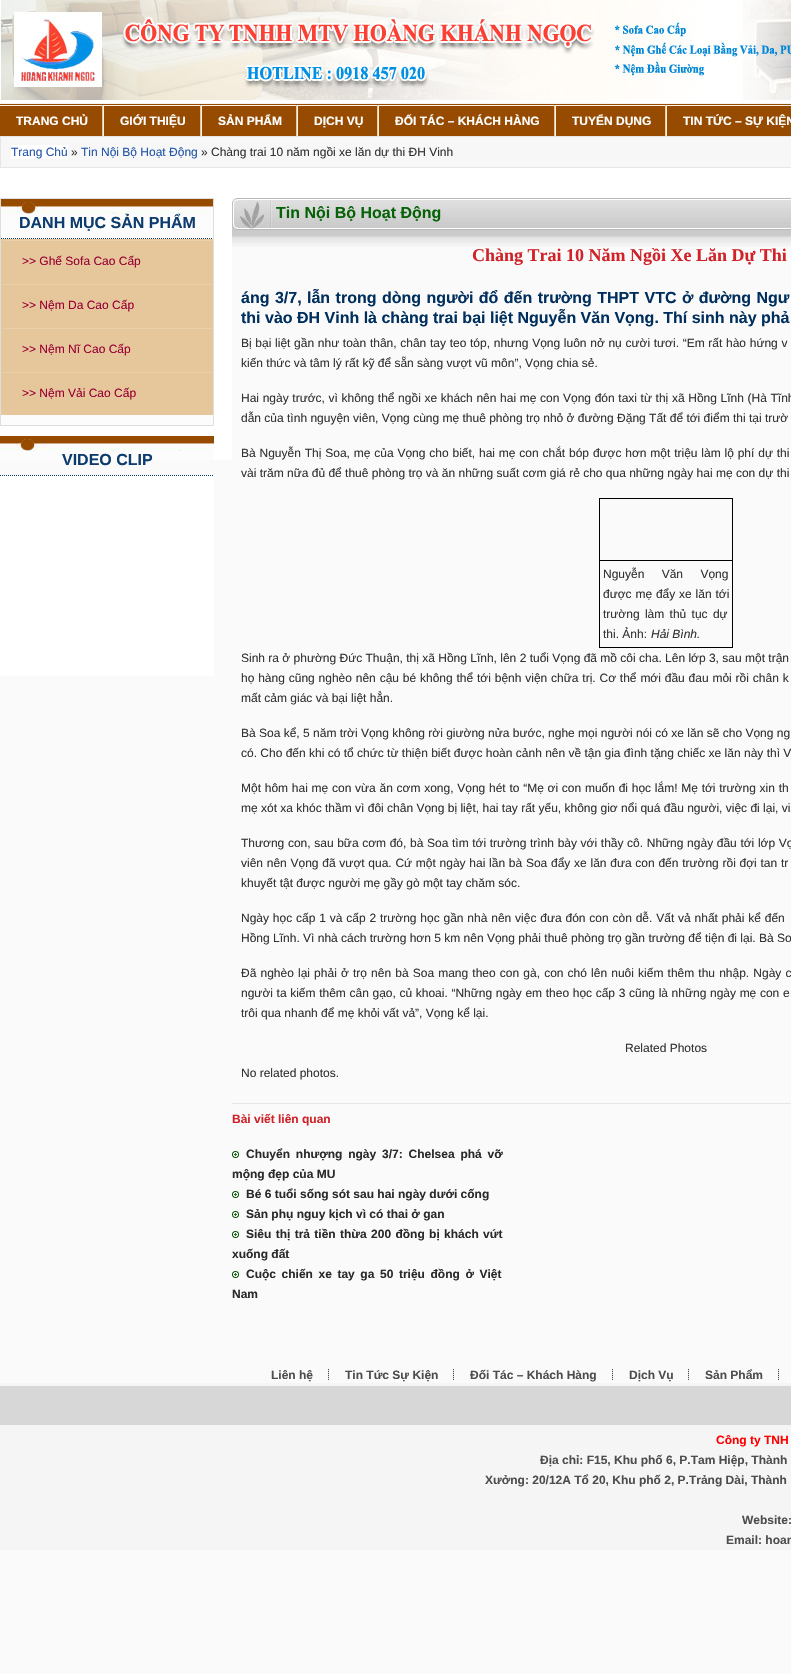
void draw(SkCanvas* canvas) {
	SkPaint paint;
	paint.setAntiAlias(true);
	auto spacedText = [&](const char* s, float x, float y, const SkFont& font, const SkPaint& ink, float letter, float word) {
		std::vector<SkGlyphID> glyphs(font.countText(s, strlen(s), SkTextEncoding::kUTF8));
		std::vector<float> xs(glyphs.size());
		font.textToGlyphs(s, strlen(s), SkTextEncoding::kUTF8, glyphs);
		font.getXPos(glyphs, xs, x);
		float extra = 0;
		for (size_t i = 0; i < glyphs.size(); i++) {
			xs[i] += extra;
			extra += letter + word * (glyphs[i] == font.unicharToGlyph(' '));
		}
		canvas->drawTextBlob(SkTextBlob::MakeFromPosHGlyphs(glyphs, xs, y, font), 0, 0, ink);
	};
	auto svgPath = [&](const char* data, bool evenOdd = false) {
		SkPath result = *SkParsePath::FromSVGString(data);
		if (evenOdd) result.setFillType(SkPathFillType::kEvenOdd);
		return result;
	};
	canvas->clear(0xfffafafa);
	canvas->drawImageRect(SkImages::DeferredFromEncodedData(SkData::MakeFromFileName("img1.png")), SkRect::MakeXYWH(0, 100, 791, 360), SkSamplingOptions());
	canvas->drawImageRect(SkImages::DeferredFromEncodedData(SkData::MakeFromFileName("img2.png")), SkRect::MakeXYWH(0, 1383, 791, 167), SkSamplingOptions());
	canvas->drawImageRect(SkImages::DeferredFromEncodedData(SkData::MakeFromFileName("img3.png")), SkRect::MakeXYWH(0, 0, 791, 100), SkSamplingOptions());
	canvas->drawImageRect(SkImages::DeferredFromEncodedData(SkData::MakeFromFileName("img4.png")), SkRect::MakeXYWH(102, 105, 2, 31), SkSamplingOptions());
	SkFont f1(fontMgr->matchFamilyStyle("Liberation Sans", SkFontStyle::Bold()), 12);
	f1.setSubpixel(true);
	paint.setColor(0xffffffff);
	canvas->drawString("TRANG CHỦ", 16, 125, f1, paint);
	canvas->drawImageRect(SkImages::DeferredFromEncodedData(SkData::MakeFromFileName("img4.png")), SkRect::MakeXYWH(200, 105, 2, 31), SkSamplingOptions());
	canvas->drawString("GIỚI THIỆU", 120, 125, f1, paint);
	canvas->drawImageRect(SkImages::DeferredFromEncodedData(SkData::MakeFromFileName("img4.png")), SkRect::MakeXYWH(296, 105, 2, 31), SkSamplingOptions());
	canvas->drawString("SẢN PHẨM", 218, 125, f1, paint);
	canvas->drawImageRect(SkImages::DeferredFromEncodedData(SkData::MakeFromFileName("img4.png")), SkRect::MakeXYWH(377, 105, 2, 31), SkSamplingOptions());
	canvas->drawString("DỊCH VỤ", 314, 125, f1, paint);
	canvas->drawImageRect(SkImages::DeferredFromEncodedData(SkData::MakeFromFileName("img4.png")), SkRect::MakeXYWH(554, 105, 2, 31), SkSamplingOptions());
	canvas->drawString("ĐỐI TÁC – KHÁCH HÀNG", 395, 125, f1, paint);
	canvas->drawImageRect(SkImages::DeferredFromEncodedData(SkData::MakeFromFileName("img4.png")), SkRect::MakeXYWH(665, 105, 2, 31), SkSamplingOptions());
	canvas->drawString("TUYỂN DỤNG", 572, 125, f1, paint);
	canvas->drawString("TIN TỨC – SỰ KIỆN", 683, 125, f1, paint);
	paint.setColor(0xfff7f7f7);
	canvas->drawRect(SkRect::MakeXYWH(0.5, 136.5, 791, 31), paint);
	paint.setStroke(true);
	paint.setStrokeWidth(1);
	paint.setColor(0xffe6e6e6);
	canvas->drawRect(SkRect::MakeXYWH(0.5, 136.5, 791, 31), paint);
	paint.setStroke(false);
	paint.setColor(0xffffffff);
	canvas->drawRect(SkRect::MakeXYWH(11, 145, 57, 14), paint);
	SkFont f2(fontMgr->matchFamilyStyle("Liberation Sans", SkFontStyle::Normal()), 12);
	f2.setSubpixel(true);
	paint.setColor(0xff2255aa);
	canvas->drawString("Trang Chủ", 11, 156, f2, paint);
	paint.setColor(0xff333333);
	canvas->drawString("»", 71, 156, f2, paint);
	paint.setColor(0xff2255aa);
	canvas->drawString("Tin Nội Bộ Hoạt Động", 81, 156, f2, paint);
	paint.setColor(0xff333333);
	canvas->drawString("» Chàng trai 10 năm ngồi xe lăn dự thi ĐH Vinh", 201, 156, f2, paint);
	paint.setColor(0xfffcfcfc);
	canvas->drawRect(SkRect::MakeXYWH(1, 214, 212, 211), paint);
	paint.setStroke(true);
	paint.setColor(0xffdedede);
	canvas->drawRect(SkRect::MakeXYWH(0.5, 198.5, 213, 227), paint);
	canvas->drawImageRect(SkImages::DeferredFromEncodedData(SkData::MakeFromFileName("img5.png")), SkRect::MakeXYWH(1, 199, 212, 15), SkSamplingOptions());
	paint.setColor(0xff0d3d6f);
	paint.setPathEffect(SkDashPathEffect::Make({{1, 1}}, 0));
	canvas->drawPath(svgPath("M1 238.5H213"), paint);
	paint.setPathEffect(nullptr);
	SkFont f3(fontMgr->matchFamilyStyle("Liberation Sans", SkFontStyle::Bold()), 16);
	f3.setSubpixel(true);
	paint.setStroke(false);
	canvas->drawString("DANH MỤC SẢN PHẨM", 19, 228, f3, paint);
	paint.setColor(0xffe6c79c);
	canvas->drawRect(SkRect::MakeXYWH(1, 239, 212, 176), paint);
	paint.setColor(0xffeacfab);
	canvas->drawRect(SkRect::MakeXYWH(2, 240, 210, 1), paint);
	paint.setColor(0xff990033);
	canvas->drawString(">> Ghế Sofa Cao Cấp", 22, 265, f2, paint);
	paint.setColor(0xffeacfab);
	canvas->drawRect(SkRect::MakeXYWH(2, 284, 210, 1), paint);
	paint.setColor(0xff990033);
	canvas->drawString(">> Nệm Da Cao Cấp", 22, 309, f2, paint);
	paint.setColor(0xffeacfab);
	canvas->drawRect(SkRect::MakeXYWH(2, 328, 210, 1), paint);
	paint.setColor(0xff990033);
	canvas->drawString(">> Nệm Nĩ Cao Cấp", 22, 353, f2, paint);
	paint.setColor(0xffeacfab);
	canvas->drawRect(SkRect::MakeXYWH(2, 372, 210, 1), paint);
	paint.setColor(0xff990033);
	canvas->drawString(">> Nệm Vải Cao Cấp", 22, 397, f2, paint);
	paint.setColor(0xfffcfcfc);
	canvas->drawRect(SkRect::MakeXYWH(0, 451, 214, 9), paint);
	canvas->drawImageRect(SkImages::DeferredFromEncodedData(SkData::MakeFromFileName("img6.png")), SkRect::MakeXYWH(0, 436, 214, 15), SkSamplingOptions());
	paint.setStroke(true);
	paint.setColor(0xff0d3d6f);
	paint.setPathEffect(SkDashPathEffect::Make({{1, 1}}, 0));
	canvas->drawPath(svgPath("M0 475.5H214"), paint);
	paint.setPathEffect(nullptr);
	paint.setStroke(false);
	canvas->drawString("VIDEO CLIP", 62, 465, f3, paint);
	paint.setColor(0xffffffff);
	canvas->drawRect(SkRect::MakeXYWH(0, 476, 214, 200), paint);
	canvas->drawImageRect(SkImages::DeferredFromEncodedData(SkData::MakeFromFileName("img7.png")), SkRect::MakeXYWH(272, 198, 519, 32), SkSamplingOptions());
	canvas->drawImageRect(SkImages::DeferredFromEncodedData(SkData::MakeFromFileName("img8.png")), SkRect::MakeXYWH(232, 198, 40, 32), SkSamplingOptions());
	paint.setColor(0xff066206);
	canvas->drawString("Tin Nội Bộ Hoạt Động", 276, 218, f3, paint);
	paint.setColor(0xfffafafa);
	canvas->drawRect(SkRect::MakeXYWH(232, 247, 559, 213), paint);
	canvas->drawImageRect(SkImages::DeferredFromEncodedData(SkData::MakeFromFileName("img9.png")), SkRect::MakeXYWH(232, 230, 559, 17), SkSamplingOptions());
	SkFont f4(fontMgr->matchFamilyStyle("Liberation Serif", SkFontStyle::Bold()), 18);
	f4.setSubpixel(true);
	paint.setColor(0xffd02228);
	canvas->drawString("Chàng Trai 10 Năm Ngồi Xe Lăn Dự Thi", 472, 261, f4, paint);
	paint.setColor(0xff002f5e);
	spacedText("áng 3/7, lẫn trong dòng người đổ đến trường THPT VTC ở đường Ngư", 241, 303, f3, paint, 0, 1);
	canvas->drawString("thi vào ĐH Vinh là chàng trai bại liệt Nguyễn Văn Vọng. Thí sinh này phả", 241, 323, f3, paint);
	paint.setColor(0xff333333);
	spacedText("Bị bại liệt gần như toàn thân, chân tay teo tóp, nhưng Vọng luôn nở nụ cười tươi. “Em rất hào hứng v", 241, 347, f2, paint, 0, 0.35);
	canvas->drawString("kiến thức và tâm lý rất kỹ để sẵn sàng vượt vũ môn”, Vọng chia sẻ.", 241, 367, f2, paint);
	spacedText("Hai ngày trước, vì không thể ngồi xe khách nên hai mẹ con Vọng đón taxi từ thị xã Hồng Lĩnh (Hà Tĩnh", 241, 402, f2, paint, 0, 0.3);
	canvas->drawString("dẫn của tình nguyện viên, Vọng cùng mẹ thuê phòng trọ nhỏ ở đường Đặng Tất để tới điểm thi tại trườ", 241, 422, f2, paint);
	spacedText("Bà Nguyễn Thị Soa, mẹ của Vọng cho biết, hai mẹ con chắt bóp được hơn một triệu làm lộ phí dự thi", 241, 457, f2, paint, 0, 0.5);
	canvas->drawString("vài trăm nữa đủ để thuê phòng trọ và ăn những suất cơm giá rẻ cho qua những ngày hai mẹ con dự thi", 241, 477, f2, paint);
	paint.setColor(0xff000000);
	canvas->drawRect(SkRect::MakeXYWH(599, 498, 134, 1), paint);
	canvas->drawRect(SkRect::MakeXYWH(599, 560, 134, 1), paint);
	canvas->drawRect(SkRect::MakeXYWH(732, 560, 1, 88), paint);
	canvas->drawRect(SkRect::MakeXYWH(732, 498, 1, 63), paint);
	canvas->drawRect(SkRect::MakeXYWH(599, 647, 134, 1), paint);
	canvas->drawRect(SkRect::MakeXYWH(599, 560, 1, 88), paint);
	canvas->drawRect(SkRect::MakeXYWH(599, 498, 1, 63), paint);
	paint.setColor(0xff333333);
	spacedText("Nguyễn Văn Vọng", 603, 578, f2, paint, 0, 14);
	spacedText("được mẹ đẩy xe lăn tới", 603, 598, f2, paint, 0, 0.5);
	spacedText("trường làm thủ tục dự", 603, 618, f2, paint, 0, 2);
	canvas->drawString("thi. Ảnh:", 603, 638, f2, paint);
	SkFont f5(fontMgr->matchFamilyStyle("Liberation Sans", SkFontStyle::Italic()), 12);
	f5.setSubpixel(true);
	canvas->drawString("Hải Bình.", 651, 638, f5, paint);
	canvas->drawString("Sinh ra ở phường Đức Thuận, thị xã Hồng Lĩnh, lên 2 tuổi Vọng đã mồ côi cha. Lên lớp 3, sau một trận", 241, 662, f2, paint);
	spacedText("họ hàng cũng nghèo nên cậu bé không thể tới bệnh viện chữa trị. Cơ thể mới đầu đau mỏi rồi chân k", 241, 682, f2, paint, 0, 0.5);
	canvas->drawString("mất cảm giác và bại liệt hẳn.", 241, 702, f2, paint);
	canvas->drawString("Bà Soa kể, 5 năm trời Vọng không rời giường nửa bước, nghe mọi người nói có xe lăn sẽ cho Vọng ng", 241, 737, f2, paint);
	canvas->drawString("có. Cho đến khi có tổ chức từ thiện biết được hoàn cảnh nên về tận gia đình tặng chiếc xe lăn này thì V", 241, 757, f2, paint);
	spacedText("Một hôm hai mẹ con vừa ăn cơm xong, Vọng hét to “Mẹ ơi con muốn đi học lắm! Mẹ tới trường xin th", 241, 792, f2, paint, 0, 0.4);
	canvas->drawString("mẹ xót xa khóc thầm vì đôi chân Vọng bị liệt, hai tay rất yếu, không giơ nổi quá đầu người, việc đi lại, vi", 241, 812, f2, paint);
	spacedText("Thương con, sau bữa cơm đó, bà Soa tìm tới trường trình bày với thầy cô. Những ngày đầu tới lớp Vọ", 241, 847, f2, paint, 0, 0.3);
	spacedText("viên nên Vọng đã vượt qua. Cứ một ngày hai lần bà Soa đẩy xe lăn đưa con đến trường rồi đợi tan tr", 241, 867, f2, paint, 0, 0.4);
	canvas->drawString("khuyết tật được người mẹ gầy gò một tay chăm sóc.", 241, 887, f2, paint);
	spacedText("Ngày học cấp 1 và cấp 2 trường học gần nhà nên việc đưa đón con còn dễ. Vất vả nhất phải kể đến", 241, 922, f2, paint, 0, 0.5);
	canvas->drawString("Hồng Lĩnh. Vì nhà cách trường hơn 5 km nên Vọng phải thuê phòng trọ gần trường để tiện đi lại. Bà So", 241, 942, f2, paint);
	spacedText("Đã nghèo lại phải ở trọ nên bà Soa mang theo con gà, con chó lên nuôi kiếm thêm thu nhập. Ngày c", 241, 977, f2, paint, 0, 0.8);
	spacedText("người ta kiếm thêm cân gạo, củ khoai. “Những ngày em theo học cấp 3 cũng là những ngày mẹ con e", 241, 997, f2, paint, 0, 0.3);
	canvas->drawString("trôi qua nhanh để mẹ khỏi vất vả”, Vọng kể lại.", 241, 1017, f2, paint);
	canvas->drawString("Related Photos", 625, 1052, f2, paint);
	canvas->drawString("No related photos.", 241, 1077, f2, paint);
	paint.setColor(0xffe6e6e6);
	canvas->drawRect(SkRect::MakeXYWH(232, 1103, 559, 1), paint);
	paint.setColor(0xffd02228);
	canvas->drawString("Bài viết liên quan", 232, 1123, f1, paint);
	canvas->drawImageRect(SkImages::DeferredFromEncodedData(SkData::MakeFromFileName("img10.png")), SkRect::MakeXYWH(232, 1151, 7, 7), SkSamplingOptions());
	paint.setColor(0xff2a2a2a);
	spacedText("Chuyển nhượng ngày 3/7: Chelsea phá vỡ", 246, 1158, f1, paint, 0, 2.5);
	canvas->drawString("mộng đẹp của MU", 232, 1178, f1, paint);
	canvas->drawImageRect(SkImages::DeferredFromEncodedData(SkData::MakeFromFileName("img10.png")), SkRect::MakeXYWH(232, 1191, 7, 7), SkSamplingOptions());
	canvas->drawString("Bé 6 tuổi sống sót sau hai ngày dưới cống", 246, 1198, f1, paint);
	canvas->drawImageRect(SkImages::DeferredFromEncodedData(SkData::MakeFromFileName("img10.png")), SkRect::MakeXYWH(232, 1211, 7, 7), SkSamplingOptions());
	canvas->drawString("Sản phụ nguy kịch vì có thai ở gan", 246, 1218, f1, paint);
	canvas->drawImageRect(SkImages::DeferredFromEncodedData(SkData::MakeFromFileName("img10.png")), SkRect::MakeXYWH(232, 1231, 7, 7), SkSamplingOptions());
	spacedText("Siêu thị trả tiền thừa 200 đồng bị khách vứt", 246, 1238, f1, paint, 0, 1);
	canvas->drawString("xuống đất", 232, 1258, f1, paint);
	canvas->drawImageRect(SkImages::DeferredFromEncodedData(SkData::MakeFromFileName("img10.png")), SkRect::MakeXYWH(232, 1271, 7, 7), SkSamplingOptions());
	spacedText("Cuộc chiến xe tay ga 50 triệu đồng ở Việt", 246, 1278, f1, paint, 0, 2.25);
	canvas->drawString("Nam", 232, 1298, f1, paint);
	canvas->drawImageRect(SkImages::DeferredFromEncodedData(SkData::MakeFromFileName("img11.png")), SkRect::MakeXYWH(328, 1369, 1, 11), SkSamplingOptions());
	paint.setColor(0xff4d4d4d);
	canvas->drawString("Liên hệ", 271, 1379, f1, paint);
	canvas->drawImageRect(SkImages::DeferredFromEncodedData(SkData::MakeFromFileName("img11.png")), SkRect::MakeXYWH(453, 1369, 1, 11), SkSamplingOptions());
	canvas->drawString("Tin Tức Sự Kiện", 345, 1379, f1, paint);
	canvas->drawImageRect(SkImages::DeferredFromEncodedData(SkData::MakeFromFileName("img11.png")), SkRect::MakeXYWH(612, 1369, 1, 11), SkSamplingOptions());
	canvas->drawString("Đối Tác – Khách Hàng", 470, 1379, f1, paint);
	canvas->drawImageRect(SkImages::DeferredFromEncodedData(SkData::MakeFromFileName("img11.png")), SkRect::MakeXYWH(688, 1369, 1, 11), SkSamplingOptions());
	canvas->drawString("Dịch Vụ", 629, 1379, f1, paint);
	canvas->drawImageRect(SkImages::DeferredFromEncodedData(SkData::MakeFromFileName("img11.png")), SkRect::MakeXYWH(778, 1369, 1, 11), SkSamplingOptions());
	canvas->drawString("Sản Phẩm", 705, 1379, f1, paint);
	paint.setColor(0xffff0000);
	canvas->drawString("Công ty TNH", 716, 1444, f1, paint);
	paint.setColor(0xff4d4d4d);
	canvas->drawString("Địa chỉ: F15, Khu phố 6, P.Tam Hiệp, Thành", 540, 1464, f1, paint);
	canvas->drawString("Xưởng: 20/12A Tổ 20, Khu phố 2, P.Trảng Dài, Thành", 485, 1484, f1, paint);
	canvas->drawString("Website:", 742, 1524, f1, paint);
	canvas->drawString("Email: hoan", 726, 1544, f1, paint);
}
